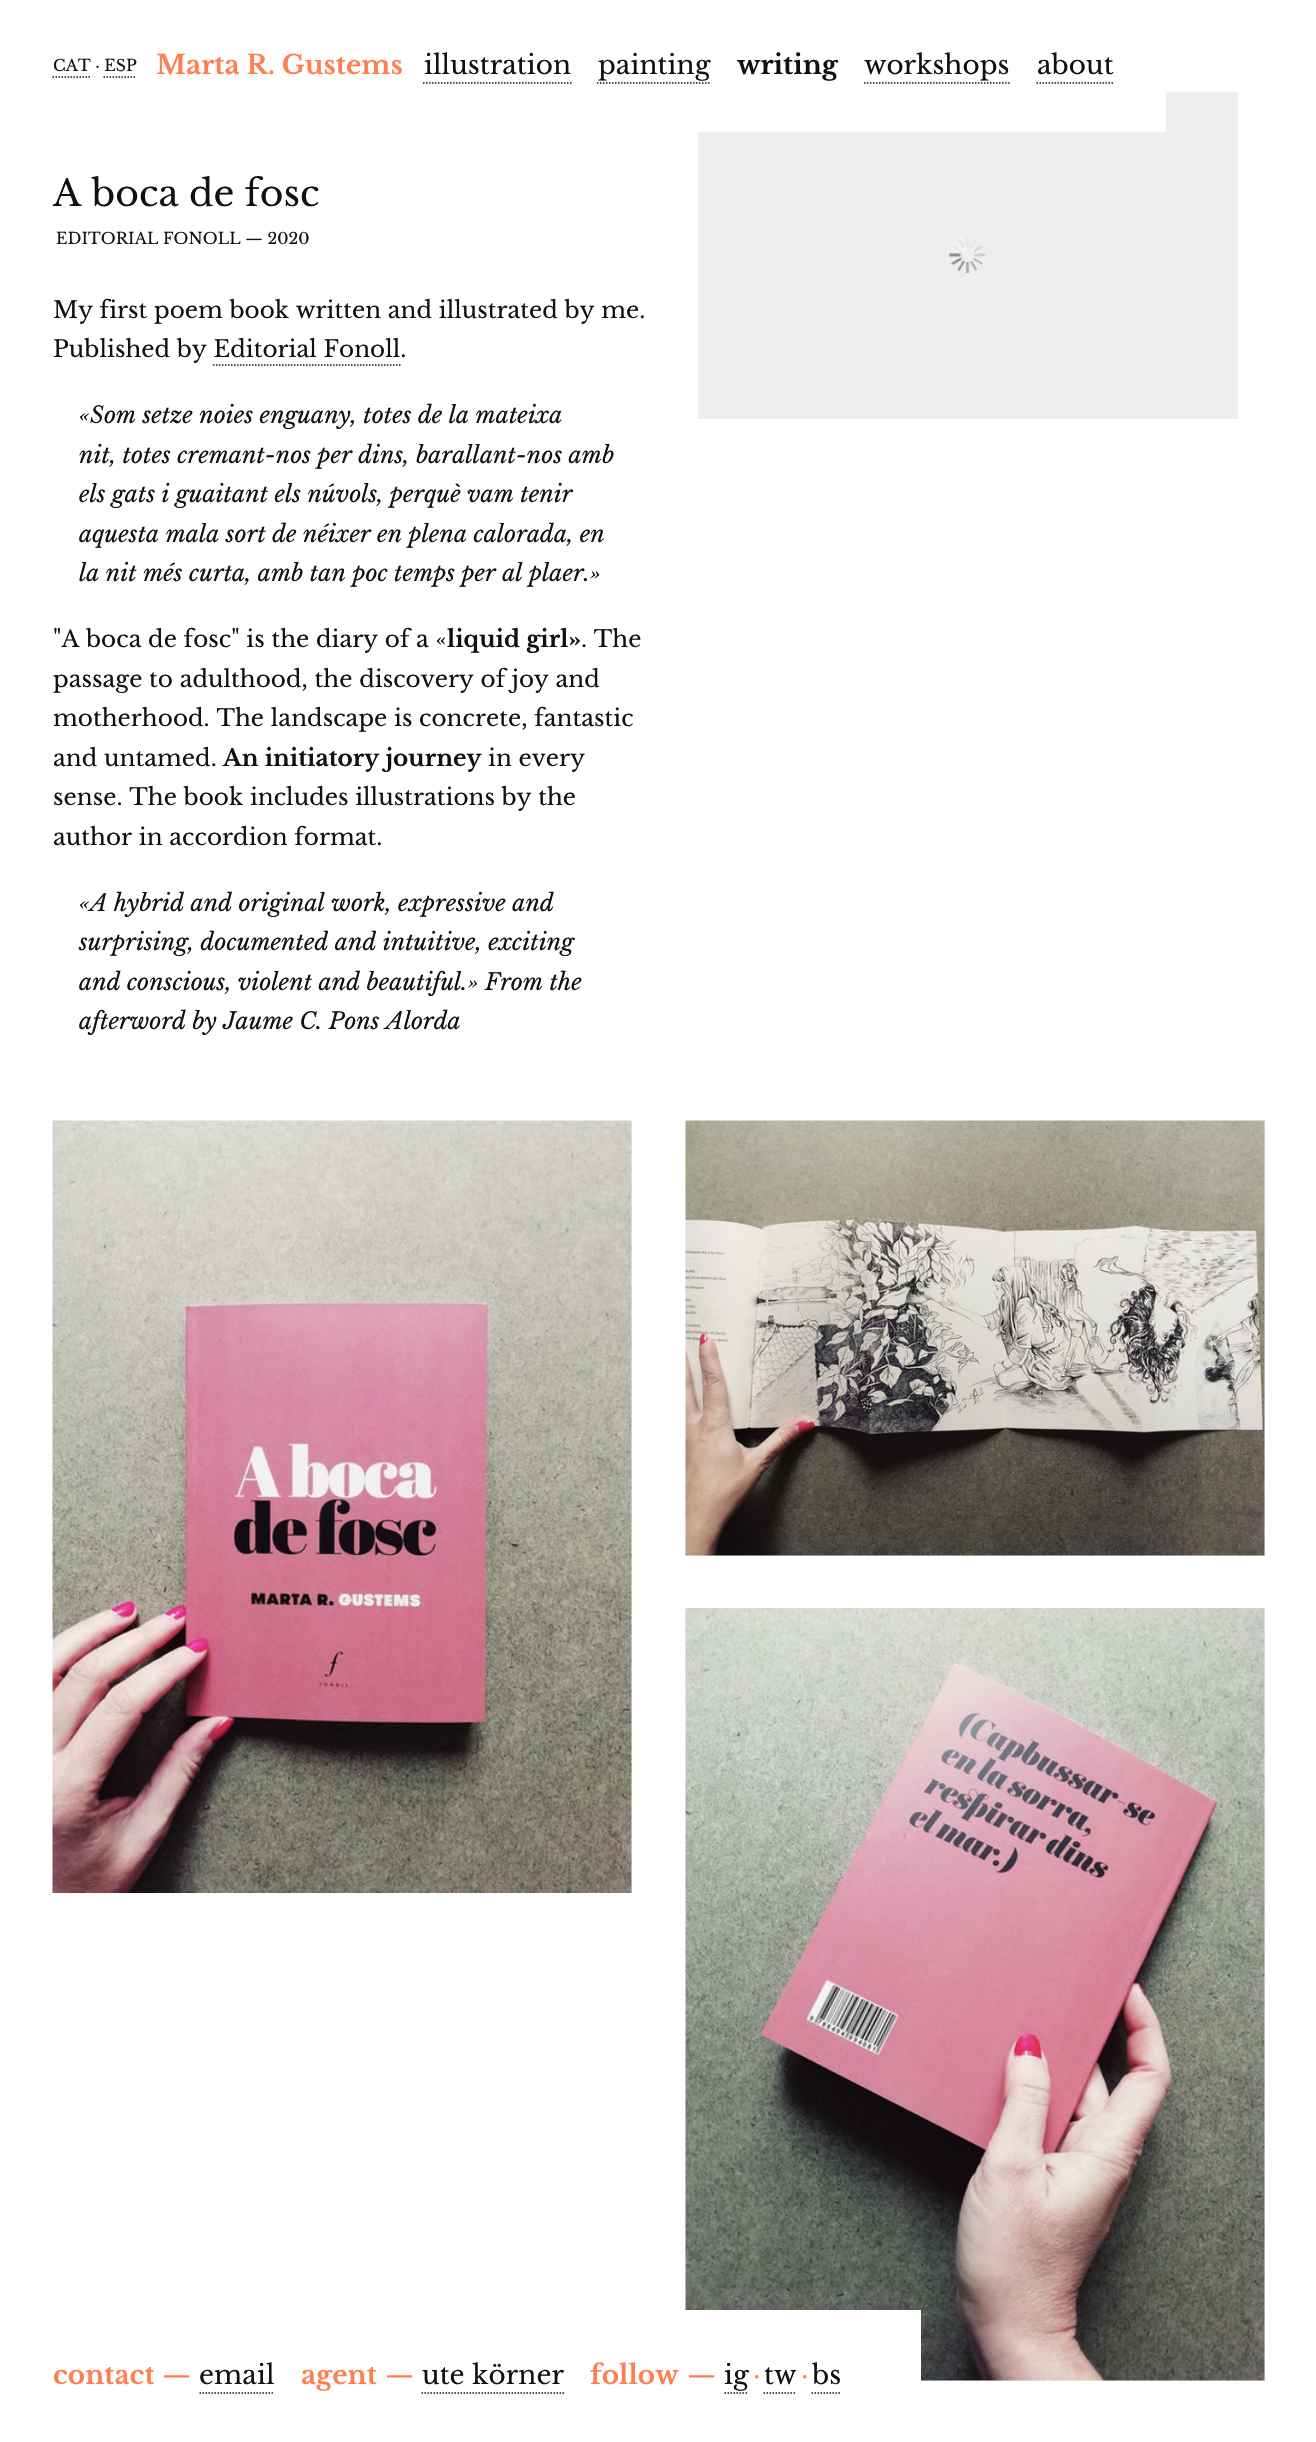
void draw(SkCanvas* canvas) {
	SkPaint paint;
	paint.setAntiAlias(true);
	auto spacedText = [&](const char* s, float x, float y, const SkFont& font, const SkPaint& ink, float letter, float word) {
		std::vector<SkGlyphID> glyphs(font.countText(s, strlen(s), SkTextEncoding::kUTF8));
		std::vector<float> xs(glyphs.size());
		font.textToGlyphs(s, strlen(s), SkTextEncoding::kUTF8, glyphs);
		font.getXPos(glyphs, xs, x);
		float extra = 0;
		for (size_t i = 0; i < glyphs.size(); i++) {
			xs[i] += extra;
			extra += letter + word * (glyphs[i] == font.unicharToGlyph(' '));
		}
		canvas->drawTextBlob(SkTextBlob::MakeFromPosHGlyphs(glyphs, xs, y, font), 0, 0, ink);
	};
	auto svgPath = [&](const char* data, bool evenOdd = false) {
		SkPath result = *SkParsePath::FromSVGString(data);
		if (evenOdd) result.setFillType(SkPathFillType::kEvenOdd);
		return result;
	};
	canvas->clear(0xffffffff);
	paint.setColor(0xffeeeeee);
	canvas->drawRect(SkRect::MakeXYWH(698, 92, 540, 327), paint);
	paint.setColor(0xffffffff);
	canvas->drawRect(SkRect::MakeXYWH(698, 92, 468, 40), paint);
	SkFont f1(fontMgr->matchFamilyStyle("Libre Baskerville", SkFontStyle::Normal()), 15.75);
	f1.setSubpixel(true);
	paint.setColor(0xff111111);
	spacedText("CAT · ESP", 53, 71, f1, paint, 0.05, 0);
	paint.setStroke(true);
	paint.setStrokeWidth(1.5);
	paint.setPathEffect(SkDashPathEffect::Make({{1.5f, 1.5f}}, 0));
	canvas->drawPath(svgPath("M52.5 77H90"), paint);
	paint.setPathEffect(nullptr);
	paint.setPathEffect(SkDashPathEffect::Make({{1.5f, 1.5f}}, 0));
	canvas->drawPath(svgPath("M103.5 77H136.5"), paint);
	paint.setPathEffect(nullptr);
	SkFont f2(fontMgr->matchFamilyStyle("Libre Baskerville", SkFontStyle::Bold()), 26.25);
	f2.setSubpixel(true);
	paint.setStroke(false);
	paint.setColor(0xffff7f50);
	spacedText("Marta R. Gustems", 156, 74, f2, paint, 0.05, 0);
	SkFont f3(fontMgr->matchFamilyStyle("Libre Baskerville", SkFontStyle::Normal()), 26.25);
	f3.setSubpixel(true);
	paint.setColor(0xff111111);
	spacedText("illustration", 424, 74, f3, paint, 0.05, 0);
	paint.setStroke(true);
	paint.setPathEffect(SkDashPathEffect::Make({{1.5f, 1.5f}}, 0));
	canvas->drawPath(svgPath("M423 83H571.5"), paint);
	paint.setPathEffect(nullptr);
	paint.setStroke(false);
	spacedText("painting", 598, 74, f3, paint, 0.05, 0);
	paint.setStroke(true);
	paint.setPathEffect(SkDashPathEffect::Make({{1.5f, 1.5f}}, 0));
	canvas->drawPath(svgPath("M597 83H711"), paint);
	paint.setPathEffect(nullptr);
	paint.setStroke(false);
	spacedText("writing", 737, 74, f2, paint, 0.05, 0);
	spacedText("workshops", 864, 74, f3, paint, 0.05, 0);
	paint.setStroke(true);
	paint.setPathEffect(SkDashPathEffect::Make({{1.5f, 1.5f}}, 0));
	canvas->drawPath(svgPath("M864 83H1011"), paint);
	paint.setPathEffect(nullptr);
	paint.setStroke(false);
	spacedText("about", 1037, 74, f3, paint, 0.05, 0);
	paint.setStroke(true);
	paint.setPathEffect(SkDashPathEffect::Make({{1.5f, 1.5f}}, 0));
	canvas->drawPath(svgPath("M1036.5 83H1113"), paint);
	paint.setPathEffect(nullptr);
	SkFont f4(fontMgr->matchFamilyStyle("Libre Baskerville", SkFontStyle::Normal()), 36.25);
	f4.setSubpixel(true);
	paint.setStroke(false);
	spacedText("A boca de fosc", 53, 206, f4, paint, 0.05, 0);
	spacedText("EDITORIAL FONOLL — 2020", 56, 244, f1, paint, 0.05, 0);
	SkFont f5(fontMgr->matchFamilyStyle("Libre Baskerville", SkFontStyle::Normal()), 23.05);
	f5.setSubpixel(true);
	spacedText("My first poem book written and illustrated by me.", 53, 318, f5, paint, 0.05, 0);
	spacedText("Published by Editorial Fonoll.", 53, 357, f5, paint, 0.05, 0);
	paint.setStroke(true);
	paint.setPathEffect(SkDashPathEffect::Make({{1.5f, 1.5f}}, 0));
	canvas->drawPath(svgPath("M213 365H400.5"), paint);
	paint.setPathEffect(nullptr);
	SkFont f6(fontMgr->matchFamilyStyle("Libre Baskerville", SkFontStyle::Italic()), 23.05);
	f6.setSubpixel(true);
	paint.setStroke(false);
	spacedText("«Som setze noies enguany, totes de la mateixa", 79, 423, f6, paint, 0.05, 0);
	spacedText("nit, totes cremant-nos per dins, barallant-nos amb", 79, 463, f6, paint, 0.05, 0);
	spacedText("els gats i guaitant els núvols, perquè vam tenir", 79, 502, f6, paint, 0.05, 0);
	spacedText("aquesta mala sort de néixer en plena calorada, en", 79, 542, f6, paint, 0.05, 0);
	spacedText("la nit més curta, amb tan poc temps per al plaer.»", 79, 581, f6, paint, 0.05, 0);
	spacedText("\"A boca de fosc\" is the diary of a «", 53, 647, f5, paint, 0.05, 0);
	SkFont f7(fontMgr->matchFamilyStyle("Libre Baskerville", SkFontStyle::Bold()), 23.05);
	f7.setSubpixel(true);
	spacedText("liquid girl»", 447, 647, f7, paint, 0.05, 0);
	spacedText(". The", 581, 647, f5, paint, 0.05, 0);
	spacedText("passage to adulthood, the discovery of joy and", 53, 687, f5, paint, 0.05, 0);
	spacedText("motherhood. The landscape is concrete, fantastic", 53, 726, f5, paint, 0.05, 0);
	spacedText("and untamed.", 53, 766, f5, paint, 0.05, 0);
	spacedText("An initiatory journey", 223, 766, f7, paint, 0.05, 0);
	spacedText("in every", 488, 766, f5, paint, 0.05, 0);
	spacedText("sense. The book includes illustrations by the", 53, 805, f5, paint, 0.05, 0);
	spacedText("author in accordion format.", 53, 845, f5, paint, 0.05, 0);
	spacedText("«A hybrid and original work, expressive and", 79, 911, f6, paint, 0.05, 0);
	spacedText("surprising, documented and intuitive, exciting", 79, 950, f6, paint, 0.05, 0);
	spacedText("and conscious, violent and beautiful.» From the", 79, 990, f6, paint, 0.05, 0);
	spacedText("afterword by Jaume C. Pons Alorda", 79, 1029, f6, paint, 0.05, 0);
	canvas->drawImageRect(SkImages::DeferredFromEncodedData(SkData::MakeFromFileName("img1.png")), SkRect::MakeXYWH(949, 237, 37, 36), SkSamplingOptions());
	paint.setColor(0xffeeeeee);
	canvas->drawRect(SkRect::MakeXYWH(631, 1121, 1, 772), paint);
	canvas->drawImageRect(SkImages::DeferredFromEncodedData(SkData::MakeFromFileName("img2.png")), SkRect::MakeXYWH(52, 1120, 580, 773), SkSamplingOptions());
	canvas->drawRect(SkRect::MakeXYWH(686, 1121, 579, 435), paint);
	canvas->drawImageRect(SkImages::DeferredFromEncodedData(SkData::MakeFromFileName("img3.png")), SkRect::MakeXYWH(685, 1120, 580, 436), SkSamplingOptions());
	canvas->drawRect(SkRect::MakeXYWH(921, 1608, 344, 773), paint);
	canvas->drawImageRect(SkImages::DeferredFromEncodedData(SkData::MakeFromFileName("img4.png")), SkRect::MakeXYWH(685, 1608, 580, 773), SkSamplingOptions());
	paint.setColor(0xffffffff);
	canvas->drawRect(SkRect::MakeXYWH(685, 2310, 236, 71), paint);
	paint.setColor(0xffff7f50);
	spacedText("contact", 53, 2384, f2, paint, 0.05, 0);
	spacedText("—", 162, 2384, f3, paint, 0.05, 0);
	paint.setColor(0xff111111);
	spacedText("email", 199, 2384, f3, paint, 0.05, 0);
	paint.setStroke(true);
	paint.setPathEffect(SkDashPathEffect::Make({{1.5f, 1.5f}}, 0));
	canvas->drawPath(svgPath("M199.5 2393H274.5"), paint);
	paint.setPathEffect(nullptr);
	paint.setStroke(false);
	paint.setColor(0xffff7f50);
	spacedText("agent", 301, 2384, f2, paint, 0.05, 0);
	spacedText("—", 385, 2384, f3, paint, 0.05, 0);
	paint.setColor(0xff111111);
	spacedText("ute körner", 422, 2384, f3, paint, 0.05, 0);
	paint.setStroke(true);
	paint.setPathEffect(SkDashPathEffect::Make({{1.5f, 1.5f}}, 0));
	canvas->drawPath(svgPath("M421.5 2393H564"), paint);
	paint.setPathEffect(nullptr);
	paint.setStroke(false);
	paint.setColor(0xffff7f50);
	spacedText("follow", 590, 2384, f2, paint, 0.05, 0);
	spacedText("—", 687, 2384, f3, paint, 0.05, 0);
	paint.setColor(0xff111111);
	spacedText("ig", 724, 2384, f3, paint, 0.05, 0);
	paint.setStroke(true);
	paint.setPathEffect(SkDashPathEffect::Make({{1.5f, 1.5f}}, 0));
	canvas->drawPath(svgPath("M724.5 2393H748.5"), paint);
	paint.setPathEffect(nullptr);
	paint.setStroke(false);
	paint.setColor(0xffff7f50);
	spacedText("·", 753, 2384, f3, paint, 0.05, 0);
	paint.setColor(0xff111111);
	spacedText("tw", 764, 2384, f3, paint, 0.05, 0);
	paint.setStroke(true);
	paint.setPathEffect(SkDashPathEffect::Make({{1.5f, 1.5f}}, 0));
	canvas->drawPath(svgPath("M763.5 2393H796.5"), paint);
	paint.setPathEffect(nullptr);
	paint.setStroke(false);
	paint.setColor(0xffff7f50);
	spacedText("·", 801, 2384, f3, paint, 0.05, 0);
	paint.setColor(0xff111111);
	spacedText("bs", 812, 2384, f3, paint, 0.05, 0);
	paint.setStroke(true);
	paint.setPathEffect(SkDashPathEffect::Make({{1.5f, 1.5f}}, 0));
	canvas->drawPath(svgPath("M811.5 2393H841.5"), paint);
	paint.setPathEffect(nullptr);
}
